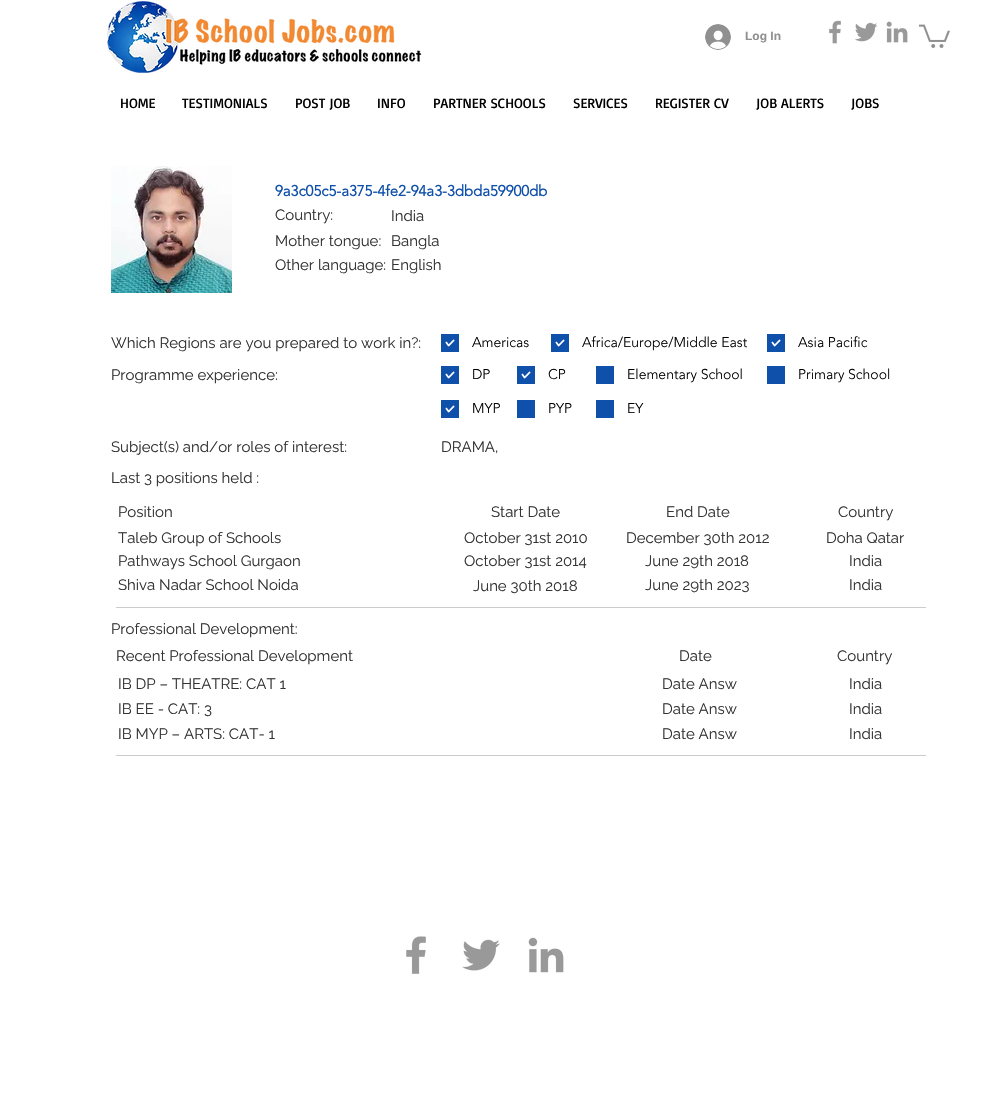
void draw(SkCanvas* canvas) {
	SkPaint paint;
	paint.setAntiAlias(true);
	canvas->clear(0xffffffff);
	canvas->drawImageRect(SkImages::DeferredFromEncodedData(SkData::MakeFromFileName("img1.png")), SkRect::MakeXYWH(107, 1, 315, 72), SkSamplingOptions());
	canvas->drawImageRect(SkImages::DeferredFromEncodedData(SkData::MakeFromFileName("img2.png")), SkRect::MakeXYWH(705, 24, 26, 26), SkSamplingOptions());
	SkFont f1(fontMgr->matchFamilyStyle("Liberation Sans", SkFontStyle::Bold()), 12);
	f1.setSubpixel(true);
	paint.setColor(0xff919090);
	canvas->drawString("Log In", 745, 40, f1, paint);
	canvas->drawImageRect(SkImages::DeferredFromEncodedData(SkData::MakeFromFileName("img3.png")), SkRect::MakeXYWH(829, 20, 12, 24), SkSamplingOptions());
	canvas->drawImageRect(SkImages::DeferredFromEncodedData(SkData::MakeFromFileName("img4.png")), SkRect::MakeXYWH(855, 22, 23, 20), SkSamplingOptions());
	canvas->drawImageRect(SkImages::DeferredFromEncodedData(SkData::MakeFromFileName("img5.png")), SkRect::MakeXYWH(886, 21, 22, 22), SkSamplingOptions());
	canvas->drawImageRect(SkImages::DeferredFromEncodedData(SkData::MakeFromFileName("img6.png")), SkRect::MakeXYWH(919, 24, 31, 24), SkSamplingOptions());
	SkFont f2(fontMgr->matchFamilyStyle("Basic", SkFontStyle::Normal()), 14);
	f2.setSubpixel(true);
	paint.setColor(0xff000000);
	canvas->drawString("HOME", 120, 108, f2, paint);
	canvas->drawString("TESTIMONIALS", 182, 108, f2, paint);
	canvas->drawString("POST JOB", 295, 108, f2, paint);
	canvas->drawString("INFO", 377, 108, f2, paint);
	canvas->drawString("PARTNER SCHOOLS", 433, 108, f2, paint);
	canvas->drawString("SERVICES", 573, 108, f2, paint);
	canvas->drawString("REGISTER CV", 655, 108, f2, paint);
	canvas->drawString("JOB ALERTS", 756, 108, f2, paint);
	canvas->drawString("JOBS", 851, 108, f2, paint);
	canvas->drawImageRect(SkImages::DeferredFromEncodedData(SkData::MakeFromFileName("img7.png")), SkRect::MakeXYWH(111, 166, 121, 127), SkSamplingOptions());
	SkFont f3(fontMgr->matchFamilyStyle("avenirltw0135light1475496", SkFontStyle::Bold()), 15);
	f3.setSubpixel(true);
	paint.setColor(0xff0f50aa);
	canvas->drawString("9a3c05c5-a375-4fe2-94a3-3dbda59900db", 275, 196, f3, paint);
	SkFont f4(fontMgr->matchFamilyStyle("Raleway", SkFontStyle::Normal()), 15);
	f4.setSubpixel(true);
	paint.setColor(0xff333333);
	canvas->drawString("Country:", 275, 220, f4, paint);
	canvas->drawString("India", 391, 221, f4, paint);
	canvas->drawString("Mother tongue:", 275, 246, f4, paint);
	canvas->drawString("Bangla", 391, 246, f4, paint);
	canvas->drawString("Other language:", 275, 270, f4, paint);
	canvas->drawString("English", 391, 270, f4, paint);
	canvas->drawString("Which Regions are you prepared to work in?:", 111, 348, f4, paint);
	paint.setColor(0xff0f50aa);
	canvas->drawRect(SkRect::MakeXYWH(441, 334, 18, 18), paint);
	SkFont f5(fontMgr->matchFamilyStyle("avenirltw0135light1475496", SkFontStyle(300, SkFontStyle::kNormal_Width, SkFontStyle::kUpright_Slant)), 14);
	f5.setSubpixel(true);
	paint.setColor(0xff000000);
	canvas->drawString("Americas", 472, 347, f5, paint);
	canvas->drawImageRect(SkImages::DeferredFromEncodedData(SkData::MakeFromFileName("img8.png")), SkRect::MakeXYWH(445, 339, 10, 8), SkSamplingOptions());
	paint.setColor(0xff0f50aa);
	canvas->drawRect(SkRect::MakeXYWH(551, 334, 18, 18), paint);
	paint.setColor(0xff000000);
	canvas->drawString("Africa/Europe/Middle East", 582, 347, f5, paint);
	canvas->drawImageRect(SkImages::DeferredFromEncodedData(SkData::MakeFromFileName("img8.png")), SkRect::MakeXYWH(555, 339, 10, 8), SkSamplingOptions());
	paint.setColor(0xff0f50aa);
	canvas->drawRect(SkRect::MakeXYWH(767, 334, 18, 18), paint);
	paint.setColor(0xff000000);
	canvas->drawString("Asia Pacific", 798, 347, f5, paint);
	canvas->drawImageRect(SkImages::DeferredFromEncodedData(SkData::MakeFromFileName("img8.png")), SkRect::MakeXYWH(771, 339, 10, 8), SkSamplingOptions());
	paint.setColor(0xff333333);
	canvas->drawString("Programme experience:", 111, 380, f4, paint);
	paint.setColor(0xff0f50aa);
	canvas->drawRect(SkRect::MakeXYWH(441, 366, 18, 18), paint);
	paint.setColor(0xff000000);
	canvas->drawString("DP", 472, 379, f5, paint);
	canvas->drawImageRect(SkImages::DeferredFromEncodedData(SkData::MakeFromFileName("img8.png")), SkRect::MakeXYWH(445, 371, 10, 8), SkSamplingOptions());
	paint.setColor(0xff0f50aa);
	canvas->drawRect(SkRect::MakeXYWH(517, 366, 18, 18), paint);
	paint.setColor(0xff000000);
	canvas->drawString("CP", 548, 379, f5, paint);
	canvas->drawImageRect(SkImages::DeferredFromEncodedData(SkData::MakeFromFileName("img8.png")), SkRect::MakeXYWH(521, 371, 10, 8), SkSamplingOptions());
	paint.setColor(0xff0f50aa);
	canvas->drawRect(SkRect::MakeXYWH(596, 366, 18, 18), paint);
	paint.setColor(0xff000000);
	canvas->drawString("Elementary School", 627, 379, f5, paint);
	paint.setColor(0xff0f50aa);
	canvas->drawRect(SkRect::MakeXYWH(767, 366, 18, 18), paint);
	paint.setColor(0xff000000);
	canvas->drawString("Primary School", 798, 379, f5, paint);
	paint.setColor(0xff0f50aa);
	canvas->drawRect(SkRect::MakeXYWH(441, 400, 18, 18), paint);
	paint.setColor(0xff000000);
	canvas->drawString("MYP", 472, 413, f5, paint);
	canvas->drawImageRect(SkImages::DeferredFromEncodedData(SkData::MakeFromFileName("img8.png")), SkRect::MakeXYWH(445, 405, 10, 8), SkSamplingOptions());
	paint.setColor(0xff0f50aa);
	canvas->drawRect(SkRect::MakeXYWH(517, 400, 18, 18), paint);
	paint.setColor(0xff000000);
	canvas->drawString("PYP", 548, 413, f5, paint);
	paint.setColor(0xff0f50aa);
	canvas->drawRect(SkRect::MakeXYWH(596, 400, 18, 18), paint);
	paint.setColor(0xff000000);
	canvas->drawString("EY", 627, 413, f5, paint);
	paint.setColor(0xff333333);
	canvas->drawString("Subject(s) and/or roles of interest:", 111, 452, f4, paint);
	canvas->drawString("DRAMA,", 441, 452, f4, paint);
	canvas->drawString("Last 3 positions held :", 111, 483, f4, paint);
	canvas->drawString("Position", 118, 517, f4, paint);
	canvas->drawString("Start Date", 491, 517, f4, paint);
	canvas->drawString("End Date", 666, 517, f4, paint);
	canvas->drawString("Country", 838, 517, f4, paint);
	canvas->drawString("Taleb Group of Schools", 118, 543, f4, paint);
	canvas->drawString("October 31st 2010", 464, 543, f4, paint);
	canvas->drawString("December 30th 2012", 626, 543, f4, paint);
	canvas->drawString("Doha Qatar", 826, 543, f4, paint);
	canvas->drawString("Pathways School Gurgaon", 118, 566, f4, paint);
	canvas->drawString("October 31st 2014", 464, 566, f4, paint);
	canvas->drawString("June 29th 2018", 645, 566, f4, paint);
	canvas->drawString("India", 849, 566, f4, paint);
	canvas->drawString("Shiva Nadar School Noida", 118, 590, f4, paint);
	canvas->drawString("June 30th 2018", 473, 591, f4, paint);
	canvas->drawString("June 29th 2023", 645, 590, f4, paint);
	canvas->drawString("India", 849, 590, f4, paint);
	paint.setColor(0xffcccccc);
	canvas->drawRect(SkRect::MakeXYWH(116, 607, 810, 1), paint);
	paint.setColor(0xff333333);
	canvas->drawString("Professional Development:", 111, 634, f4, paint);
	canvas->drawString("Recent Professional Development", 116, 661, f4, paint);
	canvas->drawString("Date", 679, 661, f4, paint);
	canvas->drawString("Country", 837, 661, f4, paint);
	canvas->drawString("IB DP – THEATRE: CAT 1", 118, 689, f4, paint);
	canvas->drawString("Date Answ", 662, 689, f4, paint);
	canvas->drawString("India", 849, 689, f4, paint);
	canvas->drawString("IB EE - CAT: 3", 118, 714, f4, paint);
	canvas->drawString("Date Answ", 662, 714, f4, paint);
	canvas->drawString("India", 849, 714, f4, paint);
	canvas->drawString("IB MYP – ARTS: CAT- 1", 118, 739, f4, paint);
	canvas->drawString("Date Answ", 662, 739, f4, paint);
	canvas->drawString("India", 849, 739, f4, paint);
	paint.setColor(0xffcccccc);
	canvas->drawRect(SkRect::MakeXYWH(116, 755, 810, 1), paint);
	canvas->drawImageRect(SkImages::DeferredFromEncodedData(SkData::MakeFromFileName("img9.png")), SkRect::MakeXYWH(406, 936, 20, 38), SkSamplingOptions());
	canvas->drawImageRect(SkImages::DeferredFromEncodedData(SkData::MakeFromFileName("img10.png")), SkRect::MakeXYWH(462, 939, 38, 32), SkSamplingOptions());
	canvas->drawImageRect(SkImages::DeferredFromEncodedData(SkData::MakeFromFileName("img11.png")), SkRect::MakeXYWH(528, 937, 36, 36), SkSamplingOptions());
}
